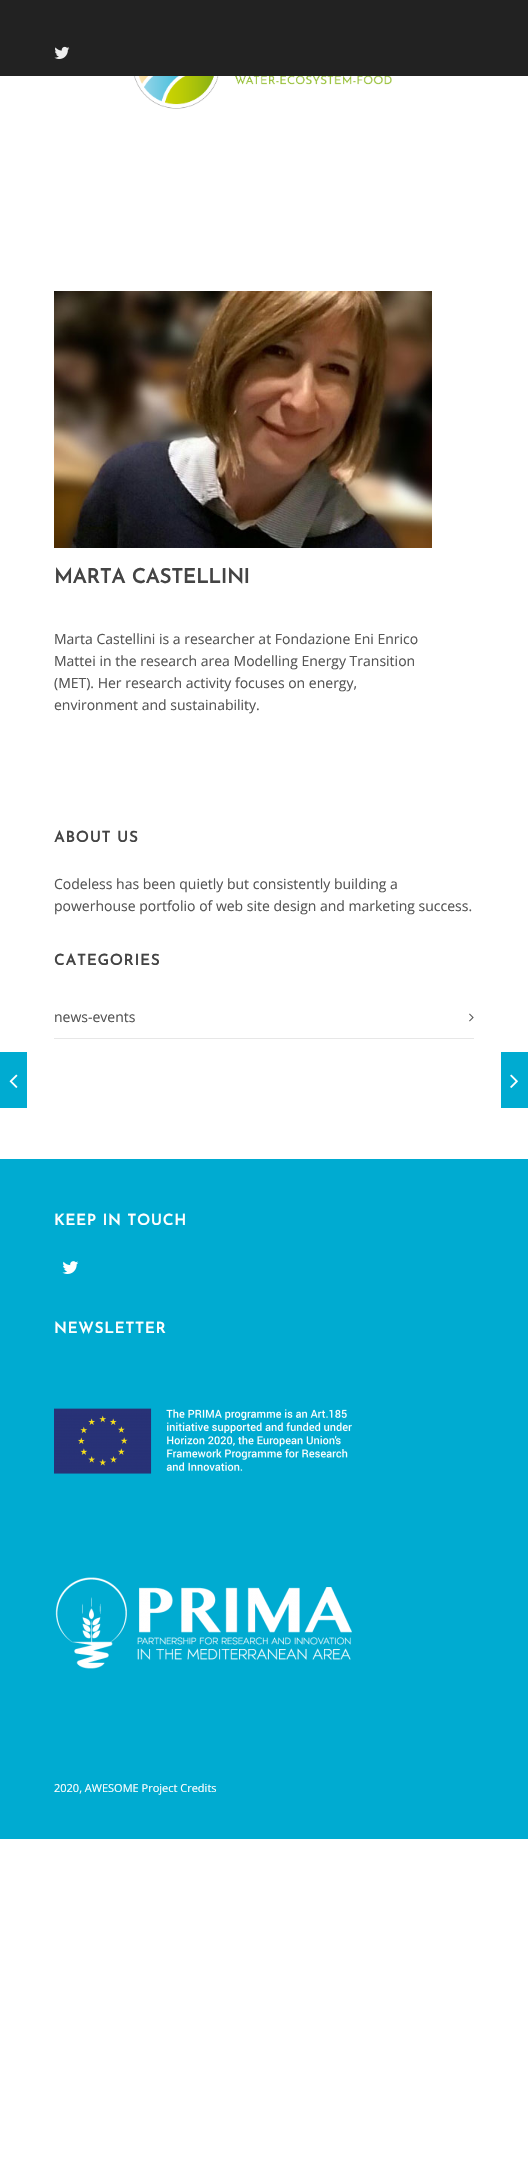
void draw(SkCanvas* canvas) {
	SkPaint paint;
	paint.setAntiAlias(true);
	auto spacedText = [&](const char* s, float x, float y, const SkFont& font, const SkPaint& ink, float letter, float word) {
		std::vector<SkGlyphID> glyphs(font.countText(s, strlen(s), SkTextEncoding::kUTF8));
		std::vector<float> xs(glyphs.size());
		font.textToGlyphs(s, strlen(s), SkTextEncoding::kUTF8, glyphs);
		font.getXPos(glyphs, xs, x);
		float extra = 0;
		for (size_t i = 0; i < glyphs.size(); i++) {
			xs[i] += extra;
			extra += letter + word * (glyphs[i] == font.unicharToGlyph(' '));
		}
		canvas->drawTextBlob(SkTextBlob::MakeFromPosHGlyphs(glyphs, xs, y, font), 0, 0, ink);
	};
	canvas->clear(0xffffffff);
	paint.setColor(0xff222222);
	canvas->drawRect(SkRect::MakeXYWH(0, 0, 528, 76), paint);
	canvas->drawImageRect(SkImages::DeferredFromEncodedData(SkData::MakeFromFileName("img1.png")), SkRect::MakeXYWH(54, 46, 16, 13), SkSamplingOptions());
	canvas->drawImageRect(SkImages::DeferredFromEncodedData(SkData::MakeFromFileName("img2.png")), SkRect::MakeXYWH(133, 76, 259, 33), SkSamplingOptions());
	canvas->drawImageRect(SkImages::DeferredFromEncodedData(SkData::MakeFromFileName("img3.png")), SkRect::MakeXYWH(54, 291, 378, 257), SkSamplingOptions());
	SkFont f1(fontMgr->matchFamilyStyle("Josefin Sans", SkFontStyle::Bold()), 20);
	f1.setSubpixel(true);
	paint.setColor(0xff444444);
	canvas->drawString("MARTA CASTELLINI", 54, 583, f1, paint);
	SkFont f2(fontMgr->matchFamilyStyle("Open Sans", SkFontStyle::Normal()), 14);
	f2.setSubpixel(true);
	paint.setColor(0xff555555);
	canvas->drawString("Marta Castellini is a researcher at Fondazione Eni Enrico", 54, 644, f2, paint);
	canvas->drawString("Mattei in the research area Modelling Energy Transition", 54, 666, f2, paint);
	canvas->drawString("(MET). Her research activity focuses on energy,", 54, 688, f2, paint);
	canvas->drawString("environment and sustainability.", 54, 710, f2, paint);
	SkFont f3(fontMgr->matchFamilyStyle("Josefin Sans", SkFontStyle::Bold()), 15);
	f3.setSubpixel(true);
	paint.setColor(0xff444444);
	spacedText("ABOUT US", 54, 842, f3, paint, 1, 0);
	paint.setColor(0xff555555);
	canvas->drawString("Codeless has been quietly but consistently building a", 54, 889, f2, paint);
	canvas->drawString("powerhouse portfolio of web site design and marketing success.", 54, 911, f2, paint);
	paint.setColor(0xff444444);
	spacedText("CATEGORIES", 54, 965, f3, paint, 1, 0);
	paint.setColor(0xffe7e7e7);
	canvas->drawRect(SkRect::MakeXYWH(54, 1038, 420, 1), paint);
	paint.setColor(0xff555555);
	canvas->drawString("news-events", 54, 1022, f2, paint);
	canvas->drawImageRect(SkImages::DeferredFromEncodedData(SkData::MakeFromFileName("img4.png")), SkRect::MakeXYWH(469, 1013, 5, 9), SkSamplingOptions());
	paint.setColor(0xff00abd1);
	canvas->drawRect(SkRect::MakeXYWH(0, 1052, 27, 56), paint);
	canvas->drawImageRect(SkImages::DeferredFromEncodedData(SkData::MakeFromFileName("img5.png")), SkRect::MakeXYWH(9, 1074, 9, 14), SkSamplingOptions());
	canvas->drawRect(SkRect::MakeXYWH(501, 1052, 27, 56), paint);
	canvas->drawImageRect(SkImages::DeferredFromEncodedData(SkData::MakeFromFileName("img6.png")), SkRect::MakeXYWH(510, 1074, 8, 14), SkSamplingOptions());
	canvas->drawRect(SkRect::MakeXYWH(0, 1159, 528, 680), paint);
	paint.setColor(0xffffffff);
	spacedText("KEEP IN TOUCH", 54, 1225, f3, paint, 1, 0);
	canvas->drawImageRect(SkImages::DeferredFromEncodedData(SkData::MakeFromFileName("img7.png")), SkRect::MakeXYWH(62, 1261, 17, 13), SkSamplingOptions());
	spacedText("NEWSLETTER", 54, 1333, f3, paint, 1, 0);
	canvas->drawImageRect(SkImages::DeferredFromEncodedData(SkData::MakeFromFileName("img8.png")), SkRect::MakeXYWH(54, 1408, 298, 66), SkSamplingOptions());
	canvas->drawImageRect(SkImages::DeferredFromEncodedData(SkData::MakeFromFileName("img9.png")), SkRect::MakeXYWH(55, 1577, 297, 92), SkSamplingOptions());
	SkFont f4(fontMgr->matchFamilyStyle("Open Sans", SkFontStyle::Normal()), 11);
	f4.setSubpixel(true);
	canvas->drawString("2020, AWESOME Project Credits", 54, 1792, f4, paint);
}
